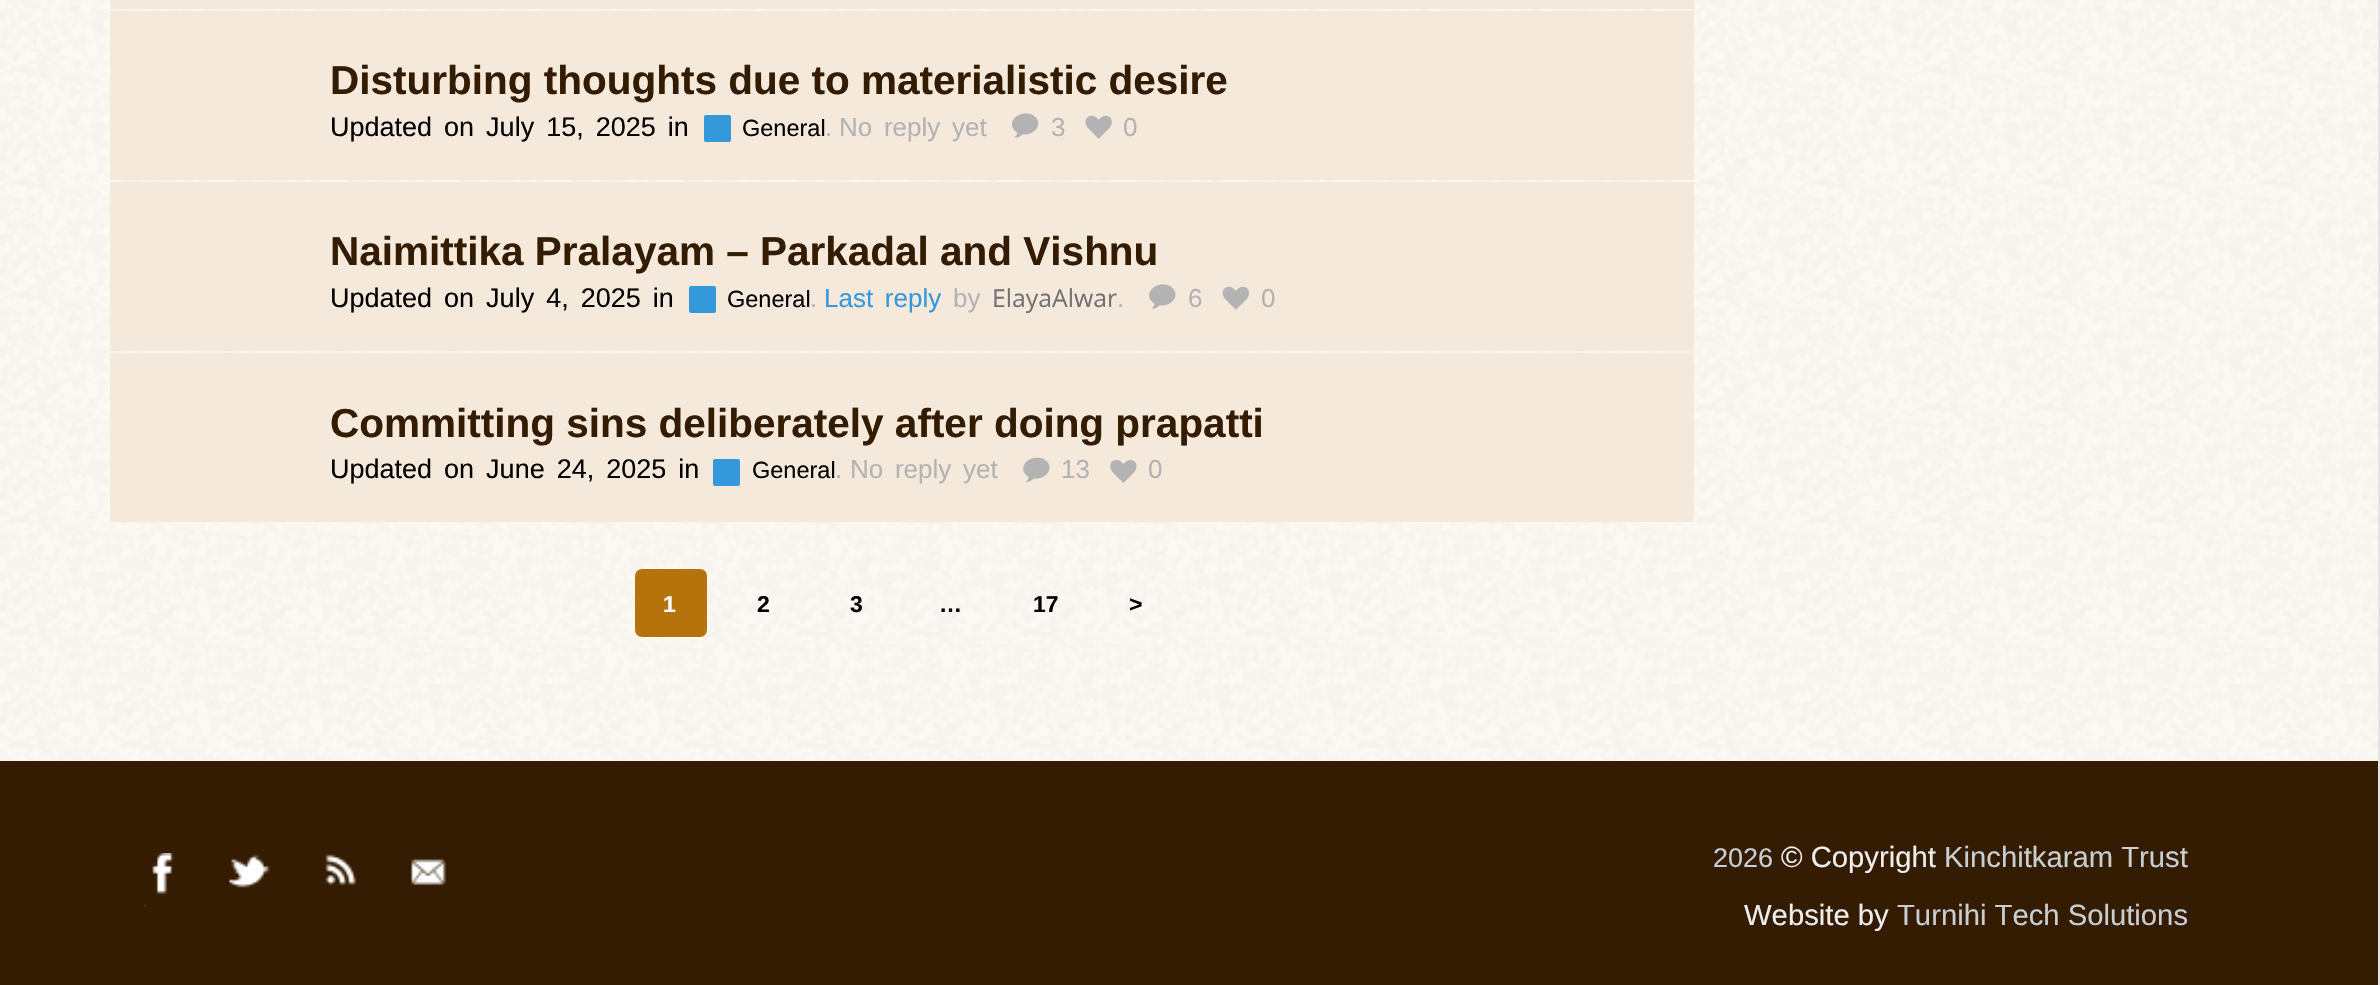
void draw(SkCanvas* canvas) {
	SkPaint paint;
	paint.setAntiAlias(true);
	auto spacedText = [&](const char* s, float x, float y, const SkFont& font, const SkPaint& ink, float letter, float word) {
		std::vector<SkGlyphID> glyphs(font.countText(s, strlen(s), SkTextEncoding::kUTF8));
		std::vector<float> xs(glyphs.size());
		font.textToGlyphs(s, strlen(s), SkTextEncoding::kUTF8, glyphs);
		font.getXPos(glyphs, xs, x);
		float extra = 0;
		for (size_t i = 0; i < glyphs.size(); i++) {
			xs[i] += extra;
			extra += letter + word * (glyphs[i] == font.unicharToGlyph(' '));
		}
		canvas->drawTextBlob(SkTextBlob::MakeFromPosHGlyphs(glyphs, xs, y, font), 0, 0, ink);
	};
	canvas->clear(0xfffcf8f4);
	canvas->drawImageRect(SkImages::DeferredFromEncodedData(SkData::MakeFromFileName("img1.png")), SkRect::MakeXYWH(0, 0, 2378, 761), SkSamplingOptions());
	paint.setColor(0xffe5e5e5);
	canvas->drawRect(SkRect::MakeXYWH(2378, 0, 2, 985), paint);
	paint.setColor(0xfff5e9dc);
	canvas->drawRect(SkRect::MakeXYWH(110, 0, 1584, 9), paint);
	canvas->drawRect(SkRect::MakeXYWH(110, 11, 1584, 169), paint);
	SkFont f1(fontMgr->matchFamilyStyle("Liberation Sans", SkFontStyle::Bold()), 40.5);
	f1.setSubpixel(true);
	paint.setColor(0xff331c01);
	canvas->drawString("Disturbing thoughts due to materialistic desire", 330, 94, f1, paint);
	SkFont f2(fontMgr->matchFamilyStyle("Liberation Sans", SkFontStyle::Normal()), 27);
	f2.setSubpixel(true);
	paint.setColor(0xff000000);
	spacedText("Updated on July 15, 2025 in", 330, 136, f2, paint, 0, 4.5);
	paint.setColor(0xff3498db);
	canvas->drawRoundRect(SkRect::MakeXYWH(704, 115, 27, 27), 2, 2, paint);
	SkFont f3(fontMgr->matchFamilyStyle("Liberation Sans", SkFontStyle::Normal()), 23.5);
	f3.setSubpixel(true);
	paint.setColor(0xff000000);
	canvas->drawString("General", 742, 136, f3, paint);
	SkFont f4(fontMgr->matchFamilyStyle("Liberation Sans", SkFontStyle::Normal()), 26);
	f4.setSubpixel(true);
	paint.setColor(0xffb3b3b3);
	canvas->drawString(".", 825, 136, f4, paint);
	spacedText("No reply yet", 839, 136, f4, paint, 0, 4.5);
	canvas->drawImageRect(SkImages::DeferredFromEncodedData(SkData::MakeFromFileName("img2.png")), SkRect::MakeXYWH(1012, 113, 27, 25), SkSamplingOptions());
	canvas->drawString("3", 1051, 136, f4, paint);
	canvas->drawImageRect(SkImages::DeferredFromEncodedData(SkData::MakeFromFileName("img3.png")), SkRect::MakeXYWH(1085, 115, 27, 24), SkSamplingOptions());
	canvas->drawString("0", 1123, 136, f4, paint);
	paint.setColor(0xfff5e9dc);
	canvas->drawRect(SkRect::MakeXYWH(110, 182, 1584, 169), paint);
	paint.setColor(0xff331c01);
	canvas->drawString("Naimittika Pralayam – Parkadal and Vishnu", 330, 265, f1, paint);
	paint.setColor(0xff000000);
	spacedText("Updated on July 4, 2025 in", 330, 307, f2, paint, 0, 4.5);
	paint.setColor(0xff3498db);
	canvas->drawRoundRect(SkRect::MakeXYWH(689, 286, 27, 27), 2, 2, paint);
	paint.setColor(0xff000000);
	canvas->drawString("General", 727, 307, f3, paint);
	paint.setColor(0xffb3b3b3);
	canvas->drawString(".", 810, 307, f4, paint);
	paint.setColor(0xff3498db);
	spacedText("Last reply", 824, 307, f4, paint, 0, 4.5);
	paint.setColor(0xffb3b3b3);
	canvas->drawString("by", 953, 307, f4, paint);
	SkFont f5(fontMgr->matchFamilyStyle("Open Sans", SkFontStyle::Normal()), 24.75);
	f5.setSubpixel(true);
	paint.setColor(0xff727272);
	canvas->drawString("ElayaAlwar", 992, 307, f5, paint);
	paint.setColor(0xffb3b3b3);
	canvas->drawString(".", 1117, 307, f4, paint);
	canvas->drawImageRect(SkImages::DeferredFromEncodedData(SkData::MakeFromFileName("img4.png")), SkRect::MakeXYWH(1149, 284, 27, 25), SkSamplingOptions());
	canvas->drawString("6", 1188, 307, f4, paint);
	canvas->drawImageRect(SkImages::DeferredFromEncodedData(SkData::MakeFromFileName("img5.png")), SkRect::MakeXYWH(1222, 286, 27, 24), SkSamplingOptions());
	canvas->drawString("0", 1261, 307, f4, paint);
	paint.setColor(0xfff5e9dc);
	canvas->drawRect(SkRect::MakeXYWH(110, 353, 1584, 169), paint);
	paint.setColor(0xff331c01);
	canvas->drawString("Committing sins deliberately after doing prapatti", 330, 437, f1, paint);
	paint.setColor(0xff000000);
	spacedText("Updated on June 24, 2025 in", 330, 478, f2, paint, 0, 4.5);
	paint.setColor(0xff3498db);
	canvas->drawRoundRect(SkRect::MakeXYWH(713, 459, 27, 27), 2, 2, paint);
	paint.setColor(0xff000000);
	canvas->drawString("General", 752, 478, f3, paint);
	paint.setColor(0xffb3b3b3);
	canvas->drawString(".", 835, 478, f4, paint);
	spacedText("No reply yet", 850, 478, f4, paint, 0, 4.5);
	canvas->drawImageRect(SkImages::DeferredFromEncodedData(SkData::MakeFromFileName("img6.png")), SkRect::MakeXYWH(1023, 457, 27, 25), SkSamplingOptions());
	canvas->drawString("13", 1061, 478, f4, paint);
	canvas->drawImageRect(SkImages::DeferredFromEncodedData(SkData::MakeFromFileName("img7.png")), SkRect::MakeXYWH(1110, 460, 27, 23), SkSamplingOptions());
	canvas->drawString("0", 1148, 478, f4, paint);
	paint.setColor(0xffb5740b);
	canvas->drawRoundRect(SkRect::MakeXYWH(635, 569, 72, 68), 7, 7, paint);
	SkFont f6(fontMgr->matchFamilyStyle("Liberation Sans", SkFontStyle::Bold()), 23);
	f6.setSubpixel(true);
	paint.setColor(0xffffffff);
	canvas->drawString("1", 663, 612, f6, paint);
	paint.setColor(0xff000000);
	canvas->drawString("2", 757, 612, f6, paint);
	canvas->drawString("3", 850, 612, f6, paint);
	canvas->drawString("…", 939, 612, f6, paint);
	canvas->drawString("17", 1033, 612, f6, paint);
	canvas->drawString(">", 1129, 612, f6, paint);
	paint.setColor(0xff331c01);
	canvas->drawRect(SkRect::MakeXYWH(0, 761, 2378, 224), paint);
	canvas->drawImageRect(SkImages::DeferredFromEncodedData(SkData::MakeFromFileName("img8.png")), SkRect::MakeXYWH(144, 853, 30, 54), SkSamplingOptions());
	canvas->drawImageRect(SkImages::DeferredFromEncodedData(SkData::MakeFromFileName("img9.png")), SkRect::MakeXYWH(229, 854, 42, 34), SkSamplingOptions());
	canvas->drawImageRect(SkImages::DeferredFromEncodedData(SkData::MakeFromFileName("img10.png")), SkRect::MakeXYWH(325, 854, 32, 32), SkSamplingOptions());
	canvas->drawImageRect(SkImages::DeferredFromEncodedData(SkData::MakeFromFileName("img11.png")), SkRect::MakeXYWH(411, 859, 35, 27), SkSamplingOptions());
	paint.setColor(0xffc9ced1);
	canvas->drawString("2026", 1713, 867, f2, paint);
	SkFont f7(fontMgr->matchFamilyStyle("Liberation Sans", SkFontStyle::Normal()), 29.25);
	f7.setSubpixel(true);
	paint.setColor(0xffeeeeee);
	canvas->drawString("© Copyright", 1781, 867, f7, paint);
	paint.setColor(0xffc9ced1);
	canvas->drawString("Kinchitkaram Trust", 1944, 867, f7, paint);
	paint.setColor(0xffeeeeee);
	canvas->drawString("Website by", 1744, 925, f7, paint);
	paint.setColor(0xffc9ced1);
	canvas->drawString("Turnihi Tech Solutions", 1897, 925, f7, paint);
}
